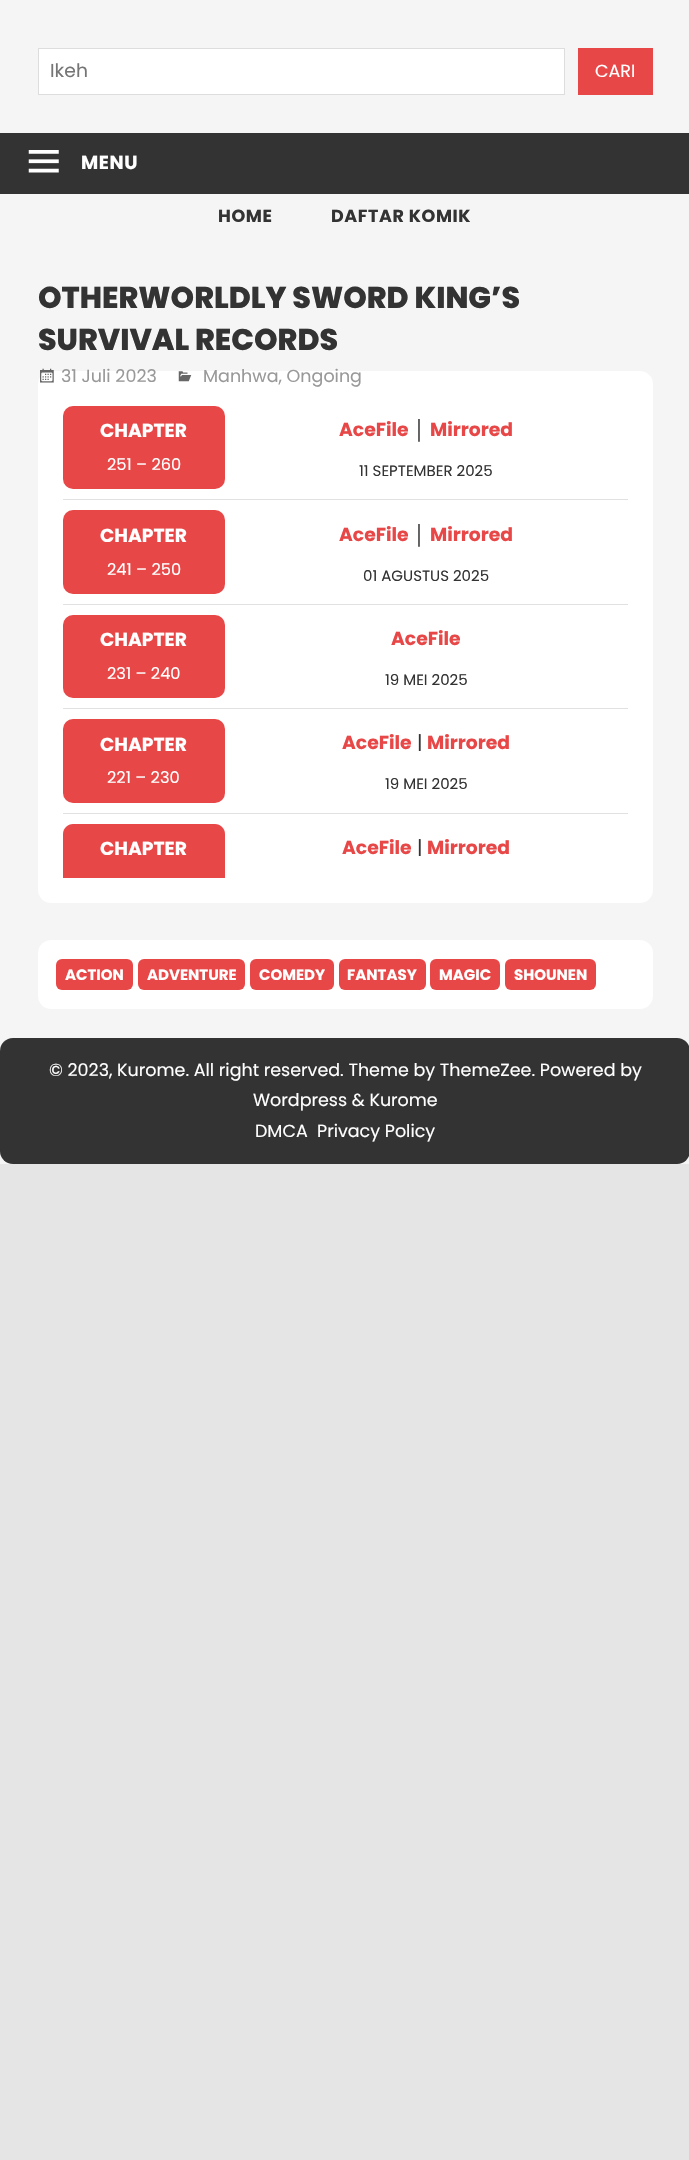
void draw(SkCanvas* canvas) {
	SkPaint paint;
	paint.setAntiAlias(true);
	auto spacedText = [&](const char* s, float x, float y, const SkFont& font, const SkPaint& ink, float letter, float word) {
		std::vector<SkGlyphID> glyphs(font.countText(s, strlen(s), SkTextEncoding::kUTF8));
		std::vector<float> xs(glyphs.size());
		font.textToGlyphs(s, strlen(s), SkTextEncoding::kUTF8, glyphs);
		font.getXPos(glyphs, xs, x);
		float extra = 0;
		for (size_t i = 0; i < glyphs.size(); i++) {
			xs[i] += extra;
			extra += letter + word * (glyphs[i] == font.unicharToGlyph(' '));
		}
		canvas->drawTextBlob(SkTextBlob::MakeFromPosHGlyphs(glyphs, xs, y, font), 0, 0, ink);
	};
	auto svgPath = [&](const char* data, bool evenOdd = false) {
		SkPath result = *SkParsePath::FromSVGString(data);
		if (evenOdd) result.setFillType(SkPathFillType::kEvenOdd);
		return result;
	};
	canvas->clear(0xffe5e5e5);
	paint.setColor(0xfff5f5f5);
	canvas->drawRect(SkRect::MakeXYWH(0, 0, 689, 1164), paint);
	paint.setColor(0xffffffff);
	canvas->drawRect(SkRect::MakeXYWH(38.5, 48.5, 526, 46), paint);
	paint.setStroke(true);
	paint.setStrokeWidth(1);
	paint.setColor(0xffdddddd);
	canvas->drawRect(SkRect::MakeXYWH(38.5, 48.5, 526, 46), paint);
	SkFont f1(fontMgr->matchFamilyStyle("Poppins", SkFontStyle::Normal()), 18.75);
	f1.setSubpixel(true);
	paint.setStroke(false);
	paint.setColor(0xff757575);
	canvas->drawString("Ikeh", 50, 77, f1, paint);
	paint.setColor(0xffe84747);
	canvas->drawRect(SkRect::MakeXYWH(578, 48, 75, 47), paint);
	SkFont f2(fontMgr->matchFamilyStyle("Poppins", SkFontStyle::Normal()), 17.5);
	f2.setSubpixel(true);
	paint.setColor(0xffffffff);
	canvas->drawString("CARI", 595, 77, f2, paint);
	paint.setColor(0xff333333);
	canvas->drawRect(SkRect::MakeXYWH(0, 133, 689, 61), paint);
	canvas->drawImageRect(SkImages::DeferredFromEncodedData(SkData::MakeFromFileName("img1.png")), SkRect::MakeXYWH(28, 150, 31, 23), SkSamplingOptions());
	SkFont f3(fontMgr->matchFamilyStyle("Poppins", SkFontStyle::Bold()), 18.75);
	f3.setSubpixel(true);
	paint.setColor(0xffffffff);
	spacedText("MENU", 81, 169, f3, paint, 0.6, 0);
	SkFont f4(fontMgr->matchFamilyStyle("Poppins", SkFontStyle::Bold()), 17.5);
	f4.setSubpixel(true);
	paint.setColor(0xff333333);
	spacedText("HOME", 218, 222, f4, paint, 0.6, 0);
	spacedText("DAFTAR KOMIK", 331, 222, f4, paint, 0.6, 0);
	SkFont f5(fontMgr->matchFamilyStyle("Poppins", SkFontStyle(800, SkFontStyle::kNormal_Width, SkFontStyle::kUpright_Slant)), 30);
	f5.setSubpixel(true);
	canvas->drawString("OTHERWORLDLY SWORD KING’S", 38, 308, f5, paint);
	canvas->drawString("SURVIVAL RECORDS", 38, 350, f5, paint);
	paint.setColor(0xffffffff);
	canvas->drawRoundRect(SkRect::MakeXYWH(38, 371, 615, 532), 13, 13, paint);
	canvas->drawImageRect(SkImages::DeferredFromEncodedData(SkData::MakeFromFileName("img2.png")), SkRect::MakeXYWH(40, 368, 14, 15), SkSamplingOptions());
	paint.setColor(0xff999999);
	canvas->drawString("31 Juli 2023", 61, 382, f2, paint);
	canvas->drawImageRect(SkImages::DeferredFromEncodedData(SkData::MakeFromFileName("img3.png")), SkRect::MakeXYWH(178, 371, 14, 11), SkSamplingOptions());
	canvas->drawString("Manhwa, Ongoing", 203, 382, f2, paint);
	paint.setColor(0xffe1e1e1);
	canvas->drawRect(SkRect::MakeXYWH(63, 499, 565, 1), paint);
	paint.setColor(0xffe84747);
	canvas->drawRoundRect(SkRect::MakeXYWH(63, 406, 162, 83), 10, 10, paint);
	paint.setColor(0xffffffff);
	canvas->drawString("CHAPTER", 100, 437, f3, paint);
	SkFont f6(fontMgr->matchFamilyStyle("Poppins", SkFontStyle::Normal()), 16.25);
	f6.setSubpixel(true);
	canvas->drawString("251 – 260", 107, 470, f6, paint);
	paint.setColor(0xffe84747);
	canvas->drawString("AceFile", 339, 436, f3, paint);
	SkFont f7(fontMgr->matchFamilyStyle("Liberation Sans", SkFontStyle::Normal()), 18.75);
	f7.setSubpixel(true);
	paint.setColor(0xff333333);
	canvas->drawString("│", 414, 436, f7, paint);
	paint.setColor(0xffe84747);
	canvas->drawString("Mirrored", 430, 436, f3, paint);
	SkFont f8(fontMgr->matchFamilyStyle("Poppins", SkFontStyle::Normal()), 15);
	f8.setSubpixel(true);
	paint.setColor(0xff333333);
	canvas->drawString("11 SEPTEMBER 2025", 359, 476, f8, paint);
	paint.setColor(0xffe1e1e1);
	canvas->drawRect(SkRect::MakeXYWH(63, 604, 565, 1), paint);
	paint.setColor(0xffe84747);
	canvas->drawRoundRect(SkRect::MakeXYWH(63, 510, 162, 84), 10, 10, paint);
	paint.setColor(0xffffffff);
	canvas->drawString("CHAPTER", 100, 542, f3, paint);
	canvas->drawString("241 – 250", 107, 575, f6, paint);
	paint.setColor(0xffe84747);
	canvas->drawString("AceFile", 339, 541, f3, paint);
	paint.setColor(0xff333333);
	canvas->drawString("│", 414, 541, f7, paint);
	paint.setColor(0xffe84747);
	canvas->drawString("Mirrored", 430, 541, f3, paint);
	paint.setColor(0xff333333);
	canvas->drawString("01 AGUSTUS 2025", 363, 581, f8, paint);
	paint.setColor(0xffe1e1e1);
	canvas->drawRect(SkRect::MakeXYWH(63, 708, 565, 1), paint);
	paint.setColor(0xffe84747);
	canvas->drawRoundRect(SkRect::MakeXYWH(63, 615, 162, 83), 10, 10, paint);
	paint.setColor(0xffffffff);
	canvas->drawString("CHAPTER", 100, 646, f3, paint);
	canvas->drawString("231 – 240", 107, 679, f6, paint);
	paint.setColor(0xffe84747);
	canvas->drawString("AceFile", 391, 645, f3, paint);
	paint.setColor(0xff333333);
	canvas->drawString("19 MEI 2025", 385, 685, f8, paint);
	paint.setColor(0xffe1e1e1);
	canvas->drawRect(SkRect::MakeXYWH(63, 813, 565, 1), paint);
	paint.setColor(0xffe84747);
	canvas->drawRoundRect(SkRect::MakeXYWH(63, 719, 162, 84), 10, 10, paint);
	paint.setColor(0xffffffff);
	canvas->drawString("CHAPTER", 100, 751, f3, paint);
	canvas->drawString("221 – 230", 107, 783, f6, paint);
	paint.setColor(0xffe84747);
	canvas->drawString("AceFile", 342, 749, f3, paint);
	paint.setColor(0xff333333);
	canvas->drawString("|", 417, 749, f1, paint);
	paint.setColor(0xffe84747);
	canvas->drawString("Mirrored", 427, 749, f3, paint);
	paint.setColor(0xff333333);
	canvas->drawString("19 MEI 2025", 385, 789, f8, paint);
	paint.setColor(0xffe84747);
	canvas->drawPath(svgPath("M73 824H215C220.5 824 225 828.5 225 834V878H63V834C63 828.5 67.5 824 73 824Z"), paint);
	paint.setColor(0xffffffff);
	canvas->drawString("CHAPTER", 100, 855, f3, paint);
	paint.setColor(0xffe84747);
	canvas->drawString("AceFile", 342, 854, f3, paint);
	paint.setColor(0xff333333);
	canvas->drawString("|", 417, 854, f1, paint);
	paint.setColor(0xffe84747);
	canvas->drawString("Mirrored", 427, 854, f3, paint);
	paint.setColor(0xffffffff);
	canvas->drawRoundRect(SkRect::MakeXYWH(38, 940, 615, 69), 13, 13, paint);
	paint.setColor(0xffe84747);
	canvas->drawRoundRect(SkRect::MakeXYWH(56, 959, 77, 31), 6, 6, paint);
	SkFont f9(fontMgr->matchFamilyStyle("Poppins", SkFontStyle::Bold()), 15);
	f9.setSubpixel(true);
	paint.setColor(0xffffffff);
	canvas->drawString("ACTION", 65, 980, f9, paint);
	paint.setColor(0xffe84747);
	canvas->drawRoundRect(SkRect::MakeXYWH(138, 959, 107, 31), 6, 6, paint);
	paint.setColor(0xffffffff);
	canvas->drawString("ADVENTURE", 147, 980, f9, paint);
	paint.setColor(0xffe84747);
	canvas->drawRoundRect(SkRect::MakeXYWH(250, 959, 84, 31), 6, 6, paint);
	paint.setColor(0xffffffff);
	canvas->drawString("COMEDY", 259, 980, f9, paint);
	paint.setColor(0xffe84747);
	canvas->drawRoundRect(SkRect::MakeXYWH(339, 959, 87, 31), 6, 6, paint);
	paint.setColor(0xffffffff);
	canvas->drawString("FANTASY", 347, 980, f9, paint);
	paint.setColor(0xffe84747);
	canvas->drawRoundRect(SkRect::MakeXYWH(430, 959, 70, 31), 6, 6, paint);
	paint.setColor(0xffffffff);
	canvas->drawString("MAGIC", 439, 980, f9, paint);
	paint.setColor(0xffe84747);
	canvas->drawRoundRect(SkRect::MakeXYWH(505, 959, 91, 31), 6, 6, paint);
	paint.setColor(0xffffffff);
	canvas->drawString("SHOUNEN", 514, 980, f9, paint);
	paint.setColor(0xff333333);
	canvas->drawRoundRect(SkRect::MakeXYWH(0, 1038, 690, 126), 13, 13, paint);
	paint.setColor(0xffffffff);
	canvas->drawString("© 2023, Kurome. All right reserved. Theme by ThemeZee. Powered by", 49, 1076, f2, paint);
	canvas->drawString("Wordpress & Kurome", 253, 1106, f2, paint);
	canvas->drawString("DMCA", 255, 1137, f2, paint);
	canvas->drawString("Privacy Policy", 317, 1137, f2, paint);
}
